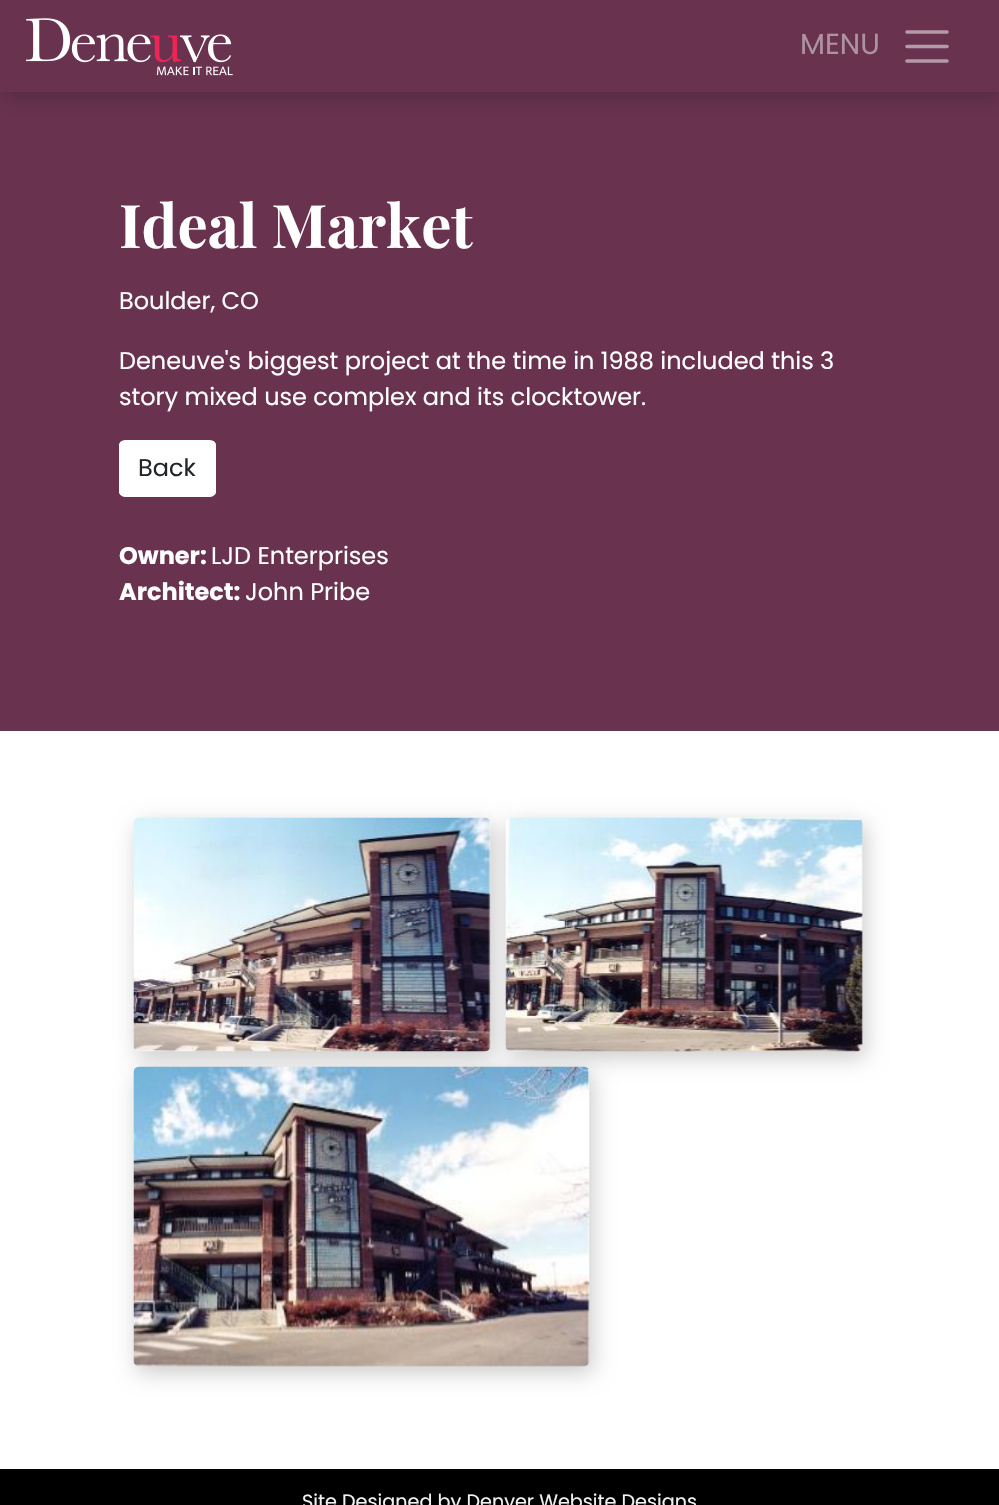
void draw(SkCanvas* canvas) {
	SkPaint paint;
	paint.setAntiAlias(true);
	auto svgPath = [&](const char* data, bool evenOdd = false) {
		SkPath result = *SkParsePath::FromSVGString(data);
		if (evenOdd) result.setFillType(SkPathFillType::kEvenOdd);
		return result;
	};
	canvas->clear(0xffffffff);
	paint.setColor(0xff693350);
	canvas->drawRect(SkRect::MakeXYWH(0, 92, 999, 639), paint);
	paint.setColor(0x33000000);
	paint.setMaskFilter(SkMaskFilter::MakeBlur(kNormal_SkBlurStyle, 10.5));
	canvas->drawRect(SkRect::MakeXYWH(3, 6, 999, 92), paint);
	paint.setMaskFilter(nullptr);
	paint.setColor(0xff693350);
	canvas->drawRect(SkRect::MakeXYWH(0, 0, 999, 92), paint);
	canvas->drawImageRect(SkImages::DeferredFromEncodedData(SkData::MakeFromFileName("img1.png")), SkRect::MakeXYWH(26, 18, 207, 58), SkSamplingOptions());
	SkFont f1(fontMgr->matchFamilyStyle("Poppins", SkFontStyle::Normal()), 29);
	f1.setSubpixel(true);
	paint.setColor(0xffad92a1);
	canvas->drawString("MENU", 800, 54, f1, paint);
	paint.setStroke(true);
	paint.setStrokeWidth(3.6);
	paint.setStrokeCap(SkPaint::kRound_Cap);
	paint.setColor(0xffb499a8);
	canvas->drawPath(svgPath("M907 32H947M907 46.5H947M907 61H947"), paint);
	SkFont f2(fontMgr->matchFamilyStyle("Playfair Display", SkFontStyle::Bold()), 60);
	f2.setSubpixel(true);
	paint.setStroke(false);
	paint.setColor(0xffffffff);
	canvas->drawString("Ideal Market", 119, 248, f2, paint);
	SkFont f3(fontMgr->matchFamilyStyle("Poppins", SkFontStyle::Normal()), 24);
	f3.setSubpixel(true);
	canvas->drawString("Boulder, CO", 119, 309, f3, paint);
	canvas->drawString("Deneuve's biggest project at the time in 1988 included this 3", 119, 369, f3, paint);
	canvas->drawString("story mixed use complex and its clocktower.", 119, 405, f3, paint);
	canvas->save();
	canvas->clipPath(svgPath("M125 440H210C213.5 440 216 442.5 216 446V491C216 494.5 213.5 497 210 497H125C121.5 497 119 494.5 119 491V446C119 442.5 121.5 440 125 440Z"), true);
	canvas->drawRect(SkRect::MakeXYWH(119, 441, 97, 54), paint);
	canvas->restore();
	paint.setStroke(true);
	paint.setStrokeWidth(2);
	paint.setStrokeCap(SkPaint::kButt_Cap);
	canvas->drawRoundRect(SkRect::MakeXYWH(120, 441, 95, 55), 5, 5, paint);
	paint.setStroke(false);
	paint.setColor(0xff212529);
	canvas->drawString("Back", 138, 476, f3, paint);
	SkFont f4(fontMgr->matchFamilyStyle("Poppins", SkFontStyle::Bold()), 24);
	f4.setSubpixel(true);
	paint.setColor(0xffffffff);
	canvas->drawString("Owner:", 119, 564, f4, paint);
	canvas->drawString("LJD Enterprises", 211, 564, f3, paint);
	canvas->drawString("Architect:", 119, 600, f4, paint);
	canvas->drawString("John Pribe", 245, 600, f3, paint);
	paint.setColor(0x33000000);
	paint.setMaskFilter(SkMaskFilter::MakeBlur(kNormal_SkBlurStyle, 10.5));
	canvas->drawRoundRect(SkRect::MakeXYWH(137, 824, 357, 234), 6, 6, paint);
	paint.setMaskFilter(nullptr);
	canvas->drawImageRect(SkImages::DeferredFromEncodedData(SkData::MakeFromFileName("img2.png")), SkRect::MakeXYWH(133, 817, 358, 235), SkSamplingOptions());
	paint.setMaskFilter(SkMaskFilter::MakeBlur(kNormal_SkBlurStyle, 10.5));
	canvas->drawRoundRect(SkRect::MakeXYWH(509, 824, 357, 234), 6, 6, paint);
	paint.setMaskFilter(nullptr);
	canvas->drawImageRect(SkImages::DeferredFromEncodedData(SkData::MakeFromFileName("img3.png")), SkRect::MakeXYWH(505, 817, 358, 235), SkSamplingOptions());
	paint.setMaskFilter(SkMaskFilter::MakeBlur(kNormal_SkBlurStyle, 10.5));
	canvas->drawRoundRect(SkRect::MakeXYWH(137, 1073, 456, 300), 6, 6, paint);
	paint.setMaskFilter(nullptr);
	canvas->drawImageRect(SkImages::DeferredFromEncodedData(SkData::MakeFromFileName("img4.png")), SkRect::MakeXYWH(133, 1066, 457, 301), SkSamplingOptions());
	paint.setColor(0xff000000);
	canvas->drawRect(SkRect::MakeXYWH(0, 1469, 999, 36), paint);
	SkFont f5(fontMgr->matchFamilyStyle("Poppins", SkFontStyle::Normal()), 19.2);
	f5.setSubpixel(true);
	paint.setColor(0xfff1f1f1);
	canvas->drawString("Site Designed by Denver Website Designs", 302, 1508, f5, paint);
}
